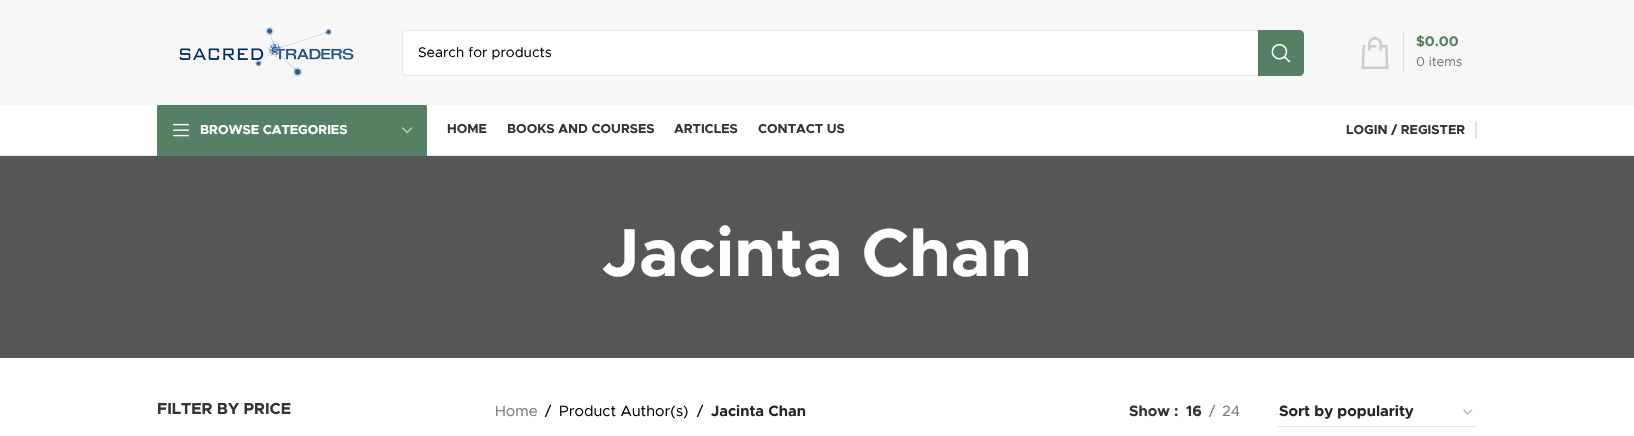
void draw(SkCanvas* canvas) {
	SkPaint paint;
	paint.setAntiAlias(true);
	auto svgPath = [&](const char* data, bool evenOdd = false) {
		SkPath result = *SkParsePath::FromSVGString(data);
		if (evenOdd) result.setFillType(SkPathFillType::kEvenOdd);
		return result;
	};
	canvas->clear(0xffffffff);
	paint.setColor(0xfff7f7f7);
	canvas->drawRect(SkRect::MakeXYWH(0, 0, 1634, 105), paint);
	canvas->drawImageRect(SkImages::DeferredFromEncodedData(SkData::MakeFromFileName("img1.png")), SkRect::MakeXYWH(179, 26, 175, 51), SkSamplingOptions());
	paint.setColor(0xffffffff);
	canvas->drawRoundRect(SkRect::MakeXYWH(402, 30, 902, 46), 5, 5, paint);
	paint.setStroke(true);
	paint.setStrokeWidth(1);
	paint.setColor(0x1a000000);
	canvas->drawRoundRect(SkRect::MakeXYWH(402.5, 30.5, 901, 45), 4.5, 4.5, paint);
	SkFont f1(fontMgr->matchFamilyStyle("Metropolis", SkFontStyle::Normal()), 14);
	f1.setSubpixel(true);
	paint.setStroke(false);
	paint.setColor(0xff000000);
	canvas->drawString("Search for products", 418, 57, f1, paint);
	paint.setColor(0xff558063);
	canvas->drawPath(svgPath("M1258 30H1299C1302 30 1304 32 1304 35V71C1304 74 1302 76 1299 76H1258Z"), paint);
	canvas->drawImageRect(SkImages::DeferredFromEncodedData(SkData::MakeFromFileName("img2.png")), SkRect::MakeXYWH(1271, 43, 20, 20), SkSamplingOptions());
	canvas->drawImageRect(SkImages::DeferredFromEncodedData(SkData::MakeFromFileName("img3.png")), SkRect::MakeXYWH(1361, 37, 28, 32), SkSamplingOptions());
	paint.setColor(0xffdedede);
	canvas->drawRect(SkRect::MakeXYWH(1403, 32, 1, 41), paint);
	SkFont f2(fontMgr->matchFamilyStyle("Metropolis", SkFontStyle::Bold()), 14);
	f2.setSubpixel(true);
	paint.setColor(0xff558063);
	canvas->drawString("$0.00", 1416, 46, f2, paint);
	SkFont f3(fontMgr->matchFamilyStyle("Metropolis", SkFontStyle::Normal()), 13);
	f3.setSubpixel(true);
	paint.setColor(0xff767676);
	canvas->drawString("0 items", 1416, 66, f3, paint);
	paint.setColor(0xffe6e6e6);
	canvas->drawRect(SkRect::MakeXYWH(0, 155, 1634, 1), paint);
	paint.setColor(0xff558063);
	canvas->drawRect(SkRect::MakeXYWH(157, 105, 270, 51), paint);
	canvas->drawImageRect(SkImages::DeferredFromEncodedData(SkData::MakeFromFileName("img4.png")), SkRect::MakeXYWH(173, 123, 16, 14), SkSamplingOptions());
	SkFont f4(fontMgr->matchFamilyStyle("Metropolis", SkFontStyle::Bold()), 13);
	f4.setSubpixel(true);
	paint.setColor(0xffffffff);
	canvas->drawString("BROWSE CATEGORIES", 200, 134, f4, paint);
	canvas->drawImageRect(SkImages::DeferredFromEncodedData(SkData::MakeFromFileName("img5.png")), SkRect::MakeXYWH(402, 127, 11, 6), SkSamplingOptions());
	paint.setColor(0xff333333);
	canvas->drawString("HOME", 447, 133, f4, paint);
	canvas->drawString("BOOKS AND COURSES", 507, 133, f4, paint);
	canvas->drawString("ARTICLES", 674, 133, f4, paint);
	canvas->drawString("CONTACT US", 758, 133, f4, paint);
	canvas->drawString("LOGIN / REGISTER", 1346, 134, f4, paint);
	paint.setColor(0xffe4e4e4);
	canvas->drawRect(SkRect::MakeXYWH(1475, 121, 2, 18), paint);
	paint.setColor(0xff565656);
	canvas->drawRect(SkRect::MakeXYWH(0, 156, 1634, 202), paint);
	SkFont f5(fontMgr->matchFamilyStyle("Metropolis", SkFontStyle::Bold()), 68);
	f5.setSubpixel(true);
	paint.setColor(0xffffffff);
	canvas->drawString("Jacinta Chan", 602, 276, f5, paint);
	SkFont f6(fontMgr->matchFamilyStyle("Metropolis", SkFontStyle::Bold()), 16);
	f6.setSubpixel(true);
	paint.setColor(0xff333333);
	canvas->drawString("FILTER BY PRICE", 157, 414, f6, paint);
	SkFont f7(fontMgr->matchFamilyStyle("Metropolis", SkFontStyle::Normal()), 15);
	f7.setSubpixel(true);
	paint.setColor(0xff767676);
	canvas->drawString("Home", 495, 416, f7, paint);
	paint.setColor(0xff000000);
	canvas->drawString("/", 545, 416, f7, paint);
	canvas->drawString("Product Author(s)", 559, 416, f7, paint);
	canvas->drawString("/", 697, 416, f7, paint);
	SkFont f8(fontMgr->matchFamilyStyle("Metropolis", SkFontStyle::Bold()), 15);
	f8.setSubpixel(true);
	paint.setColor(0xff242424);
	canvas->drawString("Jacinta Chan", 711, 416, f8, paint);
	paint.setColor(0xff333333);
	canvas->drawString("Show :", 1129, 416, f8, paint);
	canvas->drawString("16", 1186, 416, f8, paint);
	paint.setColor(0xff767676);
	canvas->drawString("/", 1209, 416, f7, paint);
	canvas->drawString("24", 1222, 416, f7, paint);
	paint.setStroke(true);
	paint.setStrokeWidth(1.4);
	paint.setColor(0xffbbbbbb);
	canvas->drawPath(svgPath("M1463.5 409.5L1467.5 414L1472 409.5"), paint);
	paint.setStroke(false);
	paint.setColor(0xffe6e6e6);
	canvas->drawRect(SkRect::MakeXYWH(1277, 426, 200, 1), paint);
	paint.setColor(0xff242424);
	canvas->drawString("Sort by popularity", 1279, 416, f8, paint);
}
